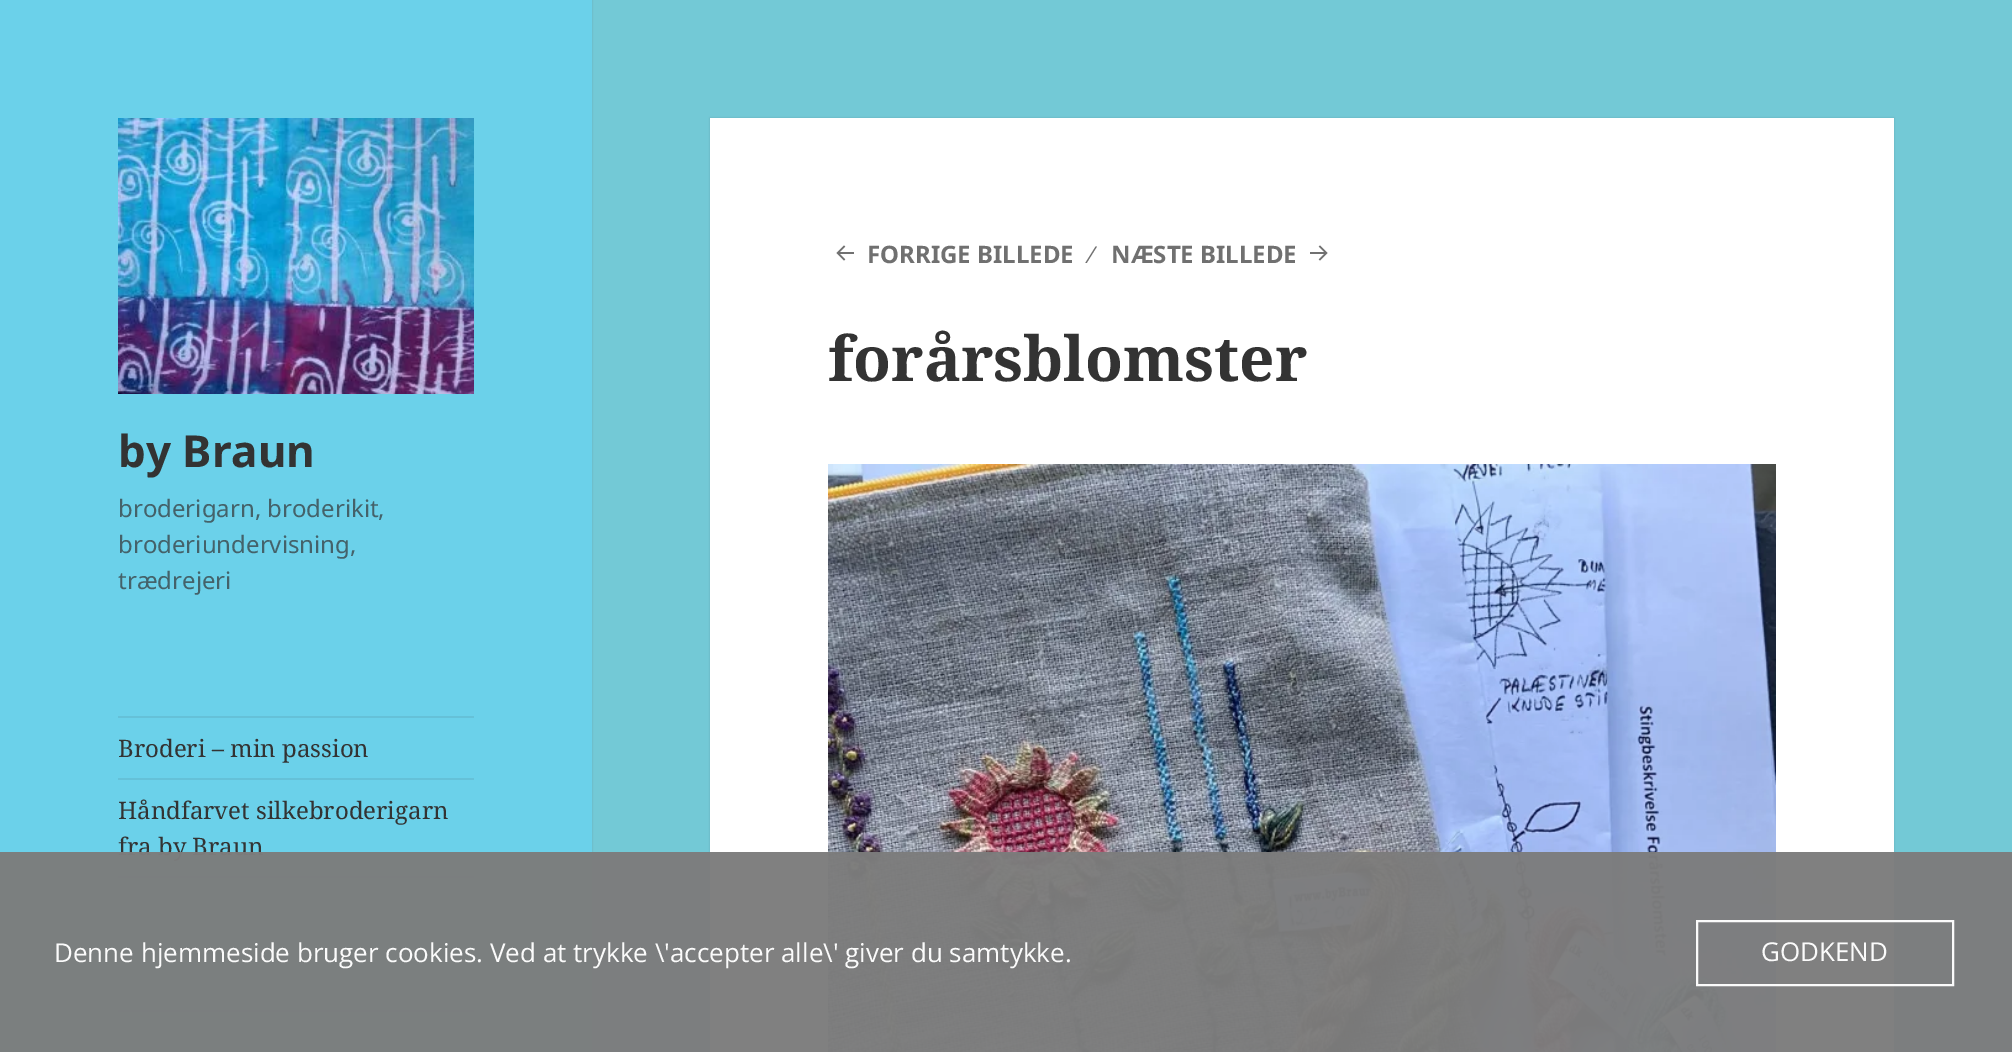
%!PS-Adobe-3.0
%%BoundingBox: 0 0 2012 1052
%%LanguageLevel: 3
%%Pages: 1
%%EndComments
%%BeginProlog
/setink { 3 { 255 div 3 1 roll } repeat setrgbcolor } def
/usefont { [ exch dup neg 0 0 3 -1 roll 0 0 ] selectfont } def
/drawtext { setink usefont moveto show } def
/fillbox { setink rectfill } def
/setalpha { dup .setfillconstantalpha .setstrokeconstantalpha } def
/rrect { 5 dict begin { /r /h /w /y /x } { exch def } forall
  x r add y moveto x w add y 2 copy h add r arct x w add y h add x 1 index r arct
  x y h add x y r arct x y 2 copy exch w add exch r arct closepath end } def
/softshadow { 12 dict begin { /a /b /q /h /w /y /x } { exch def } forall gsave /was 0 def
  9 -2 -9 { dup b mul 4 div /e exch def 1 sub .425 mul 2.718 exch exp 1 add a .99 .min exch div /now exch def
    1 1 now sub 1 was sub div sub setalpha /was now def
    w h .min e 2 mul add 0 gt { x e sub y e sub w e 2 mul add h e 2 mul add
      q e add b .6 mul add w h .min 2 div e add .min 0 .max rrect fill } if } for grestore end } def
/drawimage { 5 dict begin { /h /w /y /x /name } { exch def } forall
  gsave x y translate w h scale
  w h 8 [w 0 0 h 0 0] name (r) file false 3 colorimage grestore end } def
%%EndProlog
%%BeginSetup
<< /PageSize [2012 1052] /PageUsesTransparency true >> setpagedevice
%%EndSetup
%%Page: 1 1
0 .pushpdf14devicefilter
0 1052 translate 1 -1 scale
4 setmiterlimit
0 0 2012 1052 115 201 214 fillbox
0 0 0 setink
0 0 592 1052 0 1 0.15 softshadow
0 0 592 1052 107 209 234 fillbox
0 0 0 setink
710 118 1184 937 0 1 0.15 softshadow
710 118 1184 934 255 255 255 fillbox
(assets/img1.rgb) 836 245 18 16 drawimage
(FORRIGE BILLEDE) 867 263 /NotoSans-Bold 24 112 112 112 drawtext
(∕) 1090 263 /LiberationSans-Regular 24 112 112 112 drawtext
(NÆSTE BILLEDE) 1111 263 /NotoSans-Bold 24 112 112 112 drawtext
(assets/img2.rgb) 1310 245 18 16 drawimage
(forårsblomster) 828 381 /NotoSerif-Bold 62 51 51 51 drawtext
(assets/img3.rgb) 828 464 948 588 drawimage
(assets/img4.rgb) 118 118 356 276 drawimage
(by Braun) 118 467 /NotoSans-Bold 44 51 51 51 drawtext
(broderigarn, broderikit,) 118 517 /NotoSans-Regular 24 68 98 106 drawtext
(broderiundervisning,) 118 553 /NotoSans-Regular 24 68 98 106 drawtext
(trædrejeri) 118 589 /NotoSans-Regular 24 68 98 106 drawtext
118 716 356 2 101 193 216 fillbox
(Broderi – min passion) 118 757 /NotoSerif-Regular 24 51 51 51 drawtext
118 778 356 2 101 193 216 fillbox
(Håndfarvet silkebroderigarn) 118 819 /NotoSerif-Regular 24 51 51 51 drawtext
(fra by Braun) 118 855 /NotoSerif-Regular 24 51 51 51 drawtext
118 876 356 2 101 193 216 fillbox
118 1010 356 2 101 193 216 fillbox
0.97 setalpha
0 852 2012 200 124 124 124 fillbox
1 setalpha
(Denne hjemmeside bruger cookies. Ved at trykke \\'accepter alle\\' giver du samtykke.) 54 962 /OpenSans-Regular 26 251 251 251 drawtext
0.97 setalpha
255 255 255 setink
2 setlinewidth
1697 921 256 64 rectstroke
1 setalpha
(GODKEND) 1761 961 /OpenSans-Regular 26 251 251 251 drawtext
.poppdf14devicefilter showpage
%%EOF
